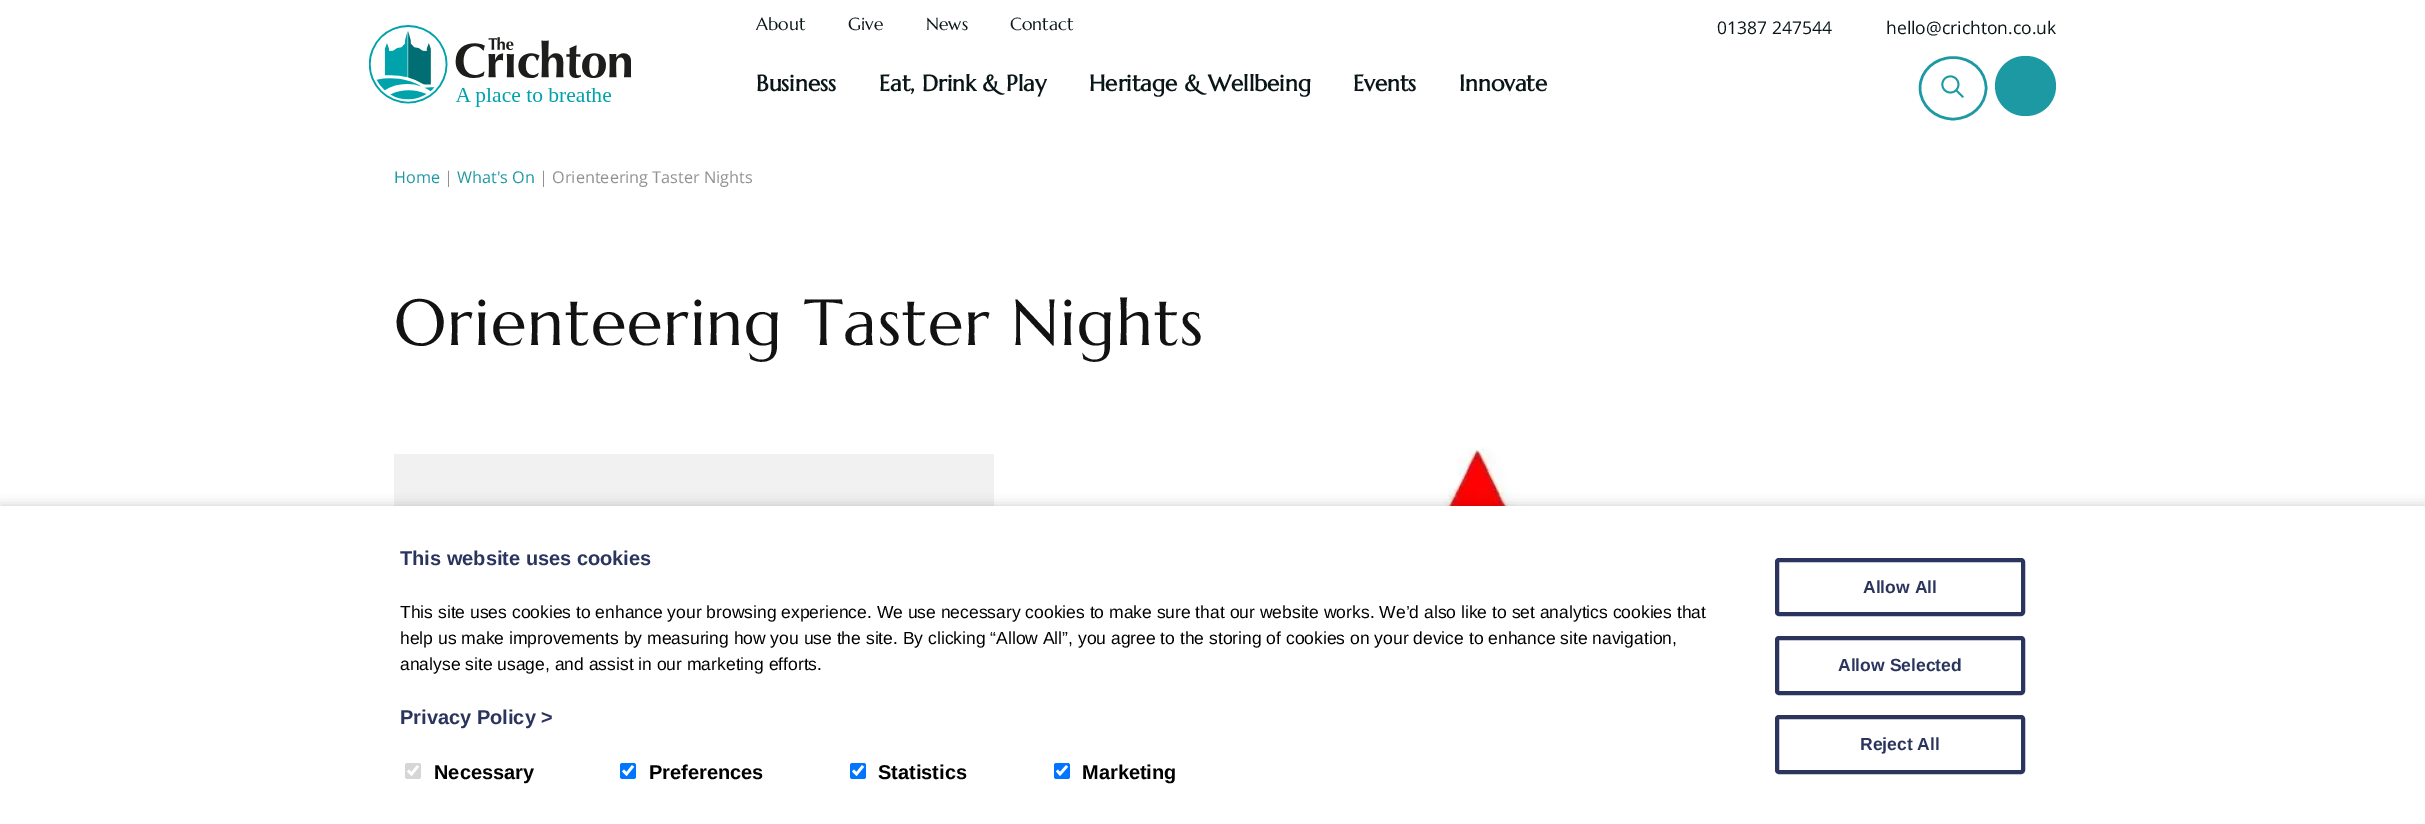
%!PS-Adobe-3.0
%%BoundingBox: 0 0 2425 824
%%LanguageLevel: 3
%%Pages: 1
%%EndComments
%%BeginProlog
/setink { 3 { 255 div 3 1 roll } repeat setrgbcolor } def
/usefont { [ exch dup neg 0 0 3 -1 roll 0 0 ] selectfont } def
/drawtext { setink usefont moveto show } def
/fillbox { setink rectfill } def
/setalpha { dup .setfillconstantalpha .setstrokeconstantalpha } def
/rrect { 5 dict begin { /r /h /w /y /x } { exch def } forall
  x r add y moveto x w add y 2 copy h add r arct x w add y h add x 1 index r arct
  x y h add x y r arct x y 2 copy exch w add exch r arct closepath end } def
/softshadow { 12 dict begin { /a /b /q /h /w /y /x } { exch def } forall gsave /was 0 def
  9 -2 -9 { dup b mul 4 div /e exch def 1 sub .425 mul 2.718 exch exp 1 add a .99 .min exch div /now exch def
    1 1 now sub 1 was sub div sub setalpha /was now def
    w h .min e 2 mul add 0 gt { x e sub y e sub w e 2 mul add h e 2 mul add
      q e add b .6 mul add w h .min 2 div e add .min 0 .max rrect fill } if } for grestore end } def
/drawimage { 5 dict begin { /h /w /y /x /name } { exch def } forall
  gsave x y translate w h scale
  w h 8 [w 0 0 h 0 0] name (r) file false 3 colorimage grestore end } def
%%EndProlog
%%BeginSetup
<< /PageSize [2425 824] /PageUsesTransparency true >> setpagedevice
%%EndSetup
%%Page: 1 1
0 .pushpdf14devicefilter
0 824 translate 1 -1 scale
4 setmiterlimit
0 0 2425 824 255 255 255 fillbox
(assets/img1.rgb) 369 25 262 82 drawimage
(About) 756 30 /Marcellus-Regular 17.5 10 22 24 drawtext
(Give) 848 30 /Marcellus-Regular 17.5 10 22 24 drawtext
(News) 926 30 /Marcellus-Regular 17.5 10 22 24 drawtext
(Contact) 1010 30 /Marcellus-Regular 17.5 10 22 24 drawtext
(01387 247544) 1717 34 /OpenSans-Regular 17.5 10 22 24 drawtext
(hello@crichton.co.uk) 1886 34 /OpenSans-Regular 17.5 10 22 24 drawtext
(Business) 756 91 /Marcellus-Bold 22.5 10 22 24 drawtext
(Eat, Drink & Play) 879 91 /Marcellus-Bold 22.5 10 22 24 drawtext
(Heritage & Wellbeing) 1089 91 /Marcellus-Bold 22.5 10 22 24 drawtext
(Events) 1353 91 /Marcellus-Bold 22.5 10 22 24 drawtext
(Innovate) 1459 91 /Marcellus-Bold 22.5 10 22 24 drawtext
28 153 163 setink
2.5 setlinewidth
1953 57.5 moveto 1971.5 57.5 1986 71 1986 88 curveto 1986 105 1971.5 119 1953 119 curveto 1935 119 1920 105 1920 88 curveto 1920 71 1935 57.5 1953 57.5 curveto closepath stroke
(assets/img2.rgb) 1941 75 23 23 drawimage
1995 56 61 60 30 rrect fill
(Home) 394 183 /OpenSans-Regular 16.25 28 153 163 drawtext
(|) 444 183 /OpenSans-Regular 16.25 145 145 145 drawtext
(What's On) 457 183 /OpenSans-Regular 16.25 28 153 163 drawtext
(| Orienteering Taster Nights) 539 183 /OpenSans-Regular 16.25 145 145 145 drawtext
/Marcellus-Regular 65 usefont
18 18 18 setink
394 345 moveto 1 0 (Orienteering Taster Nights) ashow
394 454 600 52 241 241 241 fillbox
(assets/img3.rgb) 1253 447 461 59 drawimage
0 0 0 setink
0 506 2425 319 0 6 0.2 softshadow
0 506 2425 318 255 255 255 fillbox
(This website uses cookies) 400 565 /LiberationSans-Bold 20 42 52 93 drawtext
(This site uses cookies to enhance your browsing experience. We use necessary cookies to make sure that our website works. We’d also like to set analytics cookies that) 400 618 /LiberationSans-Regular 17.5 0 0 0 drawtext
(help us make improvements by measuring how you use the site. By clicking “Allow All”, you agree to the storing of cookies on your device to enhance site navigation,) 400 644 /LiberationSans-Regular 17.5 0 0 0 drawtext
(analyse site usage, and assist in our marketing efforts.) 400 670 /LiberationSans-Regular 17.5 0 0 0 drawtext
(Privacy Policy >) 400 724 /LiberationSans-Bold 20 42 52 93 drawtext
214 214 214 setink
405 763 16 16 2.5 rrect fill
255 255 255 setink
2.6 setlinewidth
408 770.5 moveto 411.5 774 lineto 418 766 lineto stroke
(Necessary) 434 779 /LiberationSans-Bold 20 0 0 0 drawtext
0 117 255 setink
620 763 16 16 2.5 rrect fill
255 255 255 setink
623 770.5 moveto 626.5 774 lineto 633 766 lineto stroke
(Preferences) 649 779 /LiberationSans-Bold 20 0 0 0 drawtext
0 117 255 setink
850 763 16 16 2.5 rrect fill
255 255 255 setink
853 770.5 moveto 856.5 774 lineto 863 766 lineto stroke
(Statistics) 878 779 /LiberationSans-Bold 20 0 0 0 drawtext
0 117 255 setink
1054 763 16 16 2.5 rrect fill
255 255 255 setink
1057 770.5 moveto 1060 774 lineto 1067 766 lineto stroke
(Marketing) 1082 779 /LiberationSans-Bold 20 0 0 0 drawtext
42 52 93 setink
4 setlinewidth
1777 560 246 54 2 rrect stroke
(Allow All) 1863 593 /LiberationSans-Bold 17.5 42 52 93 drawtext
1777 638 246 55 2 rrect stroke
(Allow Selected) 1838 671 /LiberationSans-Bold 17.5 42 52 93 drawtext
1777 717 246 55 2 rrect stroke
(Reject All) 1860 750 /LiberationSans-Bold 17.5 42 52 93 drawtext
.poppdf14devicefilter showpage
%%EOF
